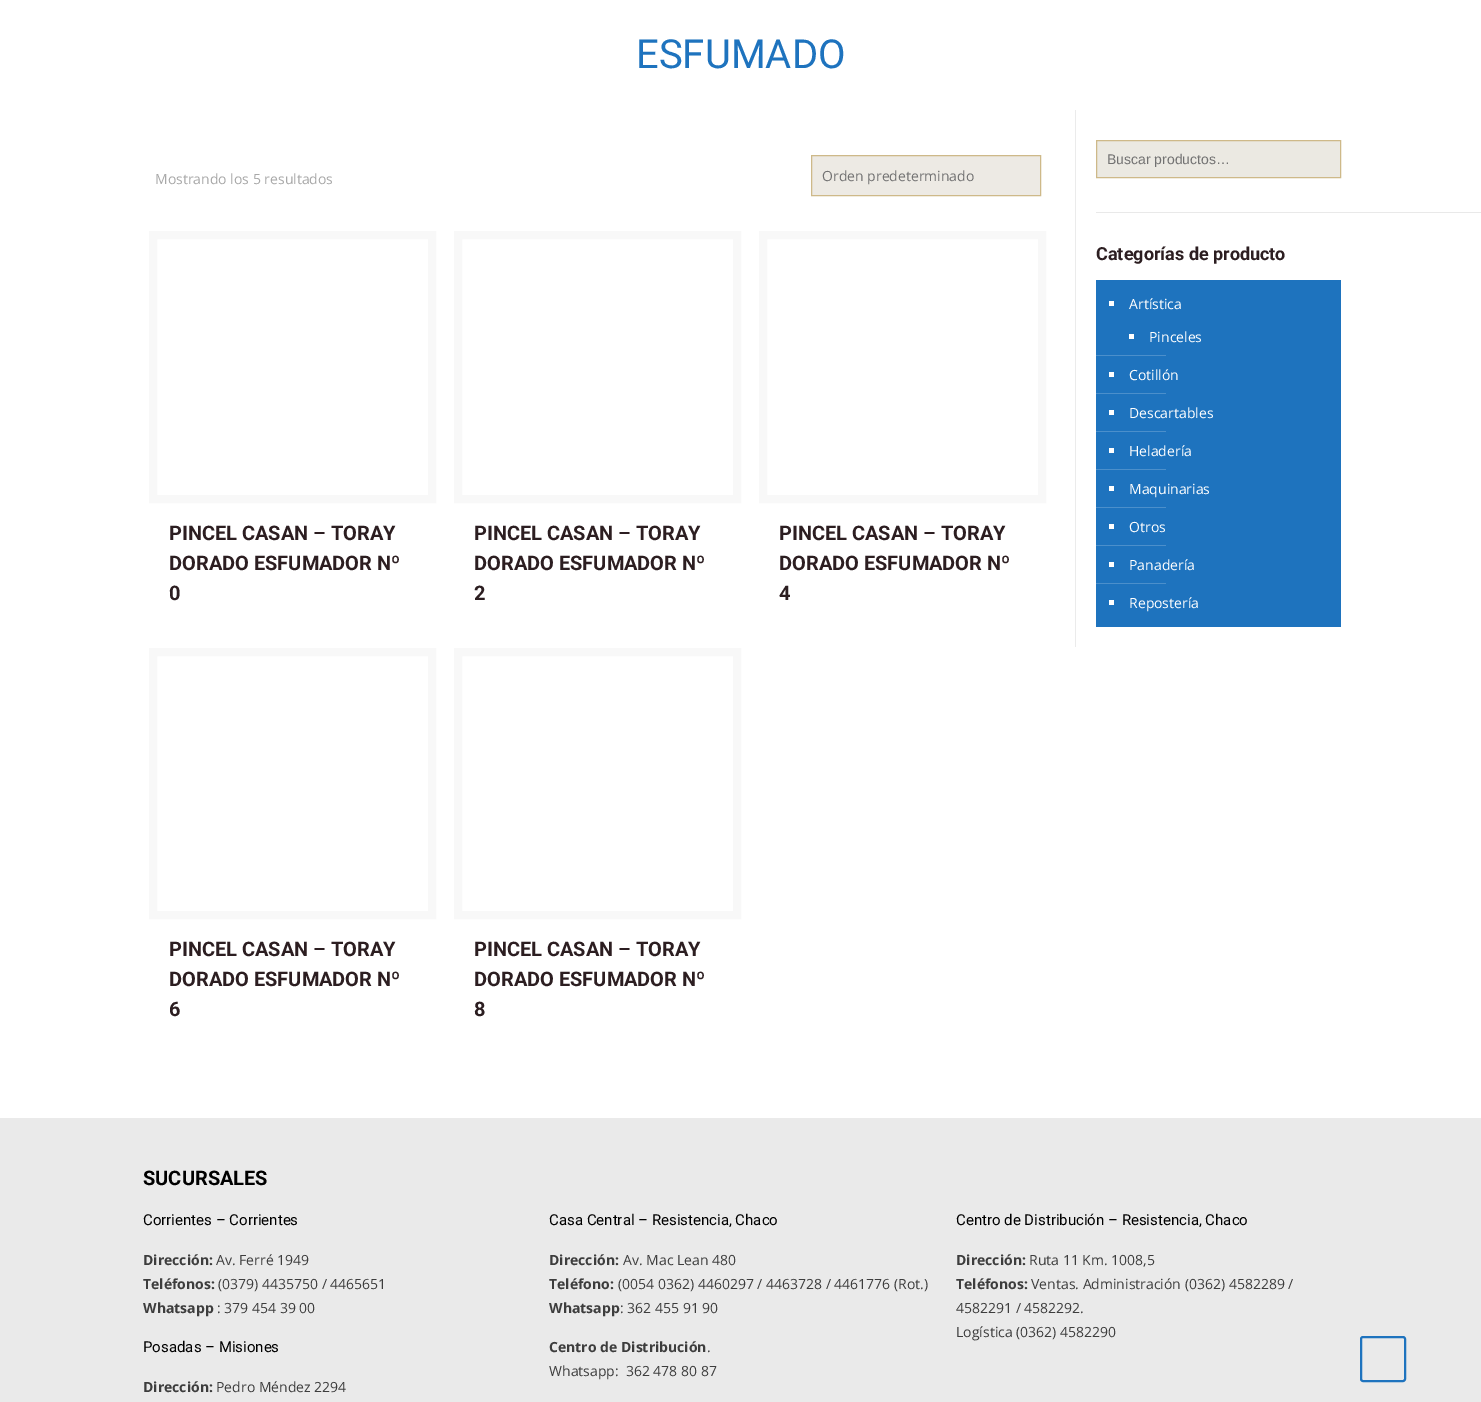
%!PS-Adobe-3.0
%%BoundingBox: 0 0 1481 1402
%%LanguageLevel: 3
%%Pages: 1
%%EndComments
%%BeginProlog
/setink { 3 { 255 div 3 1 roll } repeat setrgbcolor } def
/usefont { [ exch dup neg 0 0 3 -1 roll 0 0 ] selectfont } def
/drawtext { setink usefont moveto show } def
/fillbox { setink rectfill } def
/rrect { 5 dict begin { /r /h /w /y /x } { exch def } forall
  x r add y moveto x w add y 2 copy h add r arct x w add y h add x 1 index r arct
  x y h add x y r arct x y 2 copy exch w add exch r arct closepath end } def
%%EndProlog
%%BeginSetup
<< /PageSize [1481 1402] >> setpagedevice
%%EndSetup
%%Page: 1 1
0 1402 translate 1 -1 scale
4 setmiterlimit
0 0 1481 1402 255 255 255 fillbox
(ESFUMADO) 636 68 /Roboto-Regular 40 30 115 190 drawtext
(Mostrando los 5 resultados) 155 184 /OpenSans-Regular 14 168 168 168 drawtext
237 234 228 setink
811.5 155.5 moveto 1040.5 155.5 lineto 1040.5 195.5 lineto 811.5 195.5 lineto closepath gsave fill grestore
206 185 137 setink
stroke
(Orden predeterminado) 822 181 /OpenSans-Regular 14 114 114 114 drawtext
248 248 248 setink
8 setlinewidth
153 235 279 264 rectstroke
(PINCEL CASAN – TORAY) 169 540 /Roboto-Bold 20 44 30 33 drawtext
(DORADO ESFUMADOR Nº) 169 570 /Roboto-Bold 20 44 30 33 drawtext
(0) 169 600 /Roboto-Bold 20 44 30 33 drawtext
248 248 248 setink
458 235 279 264 rectstroke
(PINCEL CASAN – TORAY) 474 540 /Roboto-Bold 20 44 30 33 drawtext
(DORADO ESFUMADOR Nº) 474 570 /Roboto-Bold 20 44 30 33 drawtext
(2) 474 600 /Roboto-Bold 20 44 30 33 drawtext
248 248 248 setink
763 235 279 264 rectstroke
(PINCEL CASAN – TORAY) 779 540 /Roboto-Bold 20 44 30 33 drawtext
(DORADO ESFUMADOR Nº) 779 570 /Roboto-Bold 20 44 30 33 drawtext
(4) 779 600 /Roboto-Bold 20 44 30 33 drawtext
248 248 248 setink
153 652 279 263 rectstroke
(PINCEL CASAN – TORAY) 169 956 /Roboto-Bold 20 44 30 33 drawtext
(DORADO ESFUMADOR Nº) 169 986 /Roboto-Bold 20 44 30 33 drawtext
(6) 169 1016 /Roboto-Bold 20 44 30 33 drawtext
248 248 248 setink
458 652 279 263 rectstroke
(PINCEL CASAN – TORAY) 474 956 /Roboto-Bold 20 44 30 33 drawtext
(DORADO ESFUMADOR Nº) 474 986 /Roboto-Bold 20 44 30 33 drawtext
(8) 474 1016 /Roboto-Bold 20 44 30 33 drawtext
1075 110 1 537 235 235 235 fillbox
235 233 226 setink
1096.5 140.5 moveto 1340.5 140.5 lineto 1340.5 177.5 lineto 1096.5 177.5 lineto closepath gsave fill grestore
206 185 137 setink
1 setlinewidth
stroke
(Buscar productos…) 1107 164 /LiberationSans-Regular 14 114 114 114 drawtext
1096 212 385 1 233 233 233 fillbox
(Categorías de producto) 1096 260 /Roboto-Bold 18 44 30 33 drawtext
1096 280 245 347 30 115 190 fillbox
1109 301 5 5 255 255 255 fillbox
(Artística) 1129 309 /OpenSans-Regular 14 255 255 255 drawtext
1129 334 5 5 255 255 255 fillbox
(Pinceles) 1149 342 /OpenSans-Regular 14 255 255 255 drawtext
1096 355 70 1 75 143 203 fillbox
1109 372 5 5 255 255 255 fillbox
(Cotillón) 1129 380 /OpenSans-Regular 14 255 255 255 drawtext
1096 393 70 1 75 143 203 fillbox
1109 410 5 5 255 255 255 fillbox
(Descartables) 1129 418 /OpenSans-Regular 14 255 255 255 drawtext
1096 431 70 1 75 143 203 fillbox
1109 448 5 5 255 255 255 fillbox
(Heladería) 1129 456 /OpenSans-Regular 14 255 255 255 drawtext
1096 469 70 1 75 143 203 fillbox
1109 486 5 5 255 255 255 fillbox
(Maquinarias) 1129 494 /OpenSans-Regular 14 255 255 255 drawtext
1096 507 70 1 75 143 203 fillbox
1109 524 5 5 255 255 255 fillbox
(Otros) 1129 532 /OpenSans-Regular 14 255 255 255 drawtext
1096 545 70 1 75 143 203 fillbox
1109 562 5 5 255 255 255 fillbox
(Panadería) 1129 570 /OpenSans-Regular 14 255 255 255 drawtext
1096 583 70 1 75 143 203 fillbox
1109 600 5 5 255 255 255 fillbox
(Repostería) 1129 608 /OpenSans-Regular 14 255 255 255 drawtext
0 1118 1481 284 234 234 234 fillbox
(SUCURSALES) 143 1185 /Roboto-Bold 20 0 0 0 drawtext
(Corrientes – Corrientes) 143 1225 /Roboto-Regular 15 0 0 0 drawtext
(Dirección:) 143 1265 /OpenSans-Bold 14 61 61 61 drawtext
(Av. Ferré 1949) 216 1265 /OpenSans-Regular 14 61 61 61 drawtext
(Teléfonos:) 143 1289 /OpenSans-Bold 14 61 61 61 drawtext
(\(0379\) 4435750 / 4465651) 218 1289 /OpenSans-Regular 14 61 61 61 drawtext
(Whatsapp) 143 1313 /OpenSans-Bold 14 61 61 61 drawtext
(: 379 454 39 00) 217 1313 /OpenSans-Regular 14 61 61 61 drawtext
(Posadas – Misiones) 143 1352 /Roboto-Regular 15 0 0 0 drawtext
(Dirección:) 143 1392 /OpenSans-Bold 14 61 61 61 drawtext
(Pedro Méndez 2294) 216 1392 /OpenSans-Regular 14 61 61 61 drawtext
(Casa Central – Resistencia, Chaco) 549 1225 /Roboto-Regular 15 0 0 0 drawtext
(Dirección:) 549 1265 /OpenSans-Bold 14 61 61 61 drawtext
(Av. Mac Lean 480) 623 1265 /OpenSans-Regular 14 61 61 61 drawtext
(Teléfono:) 549 1289 /OpenSans-Bold 14 61 61 61 drawtext
(\(0054 0362\) 4460297 / 4463728 / 4461776 \(Rot.\)) 618 1289 /OpenSans-Regular 14 61 61 61 drawtext
(Whatsapp) 549 1313 /OpenSans-Bold 14 61 61 61 drawtext
(: 362 455 91 90) 620 1313 /OpenSans-Regular 14 61 61 61 drawtext
(Centro de Distribución) 549 1352 /OpenSans-Bold 14 61 61 61 drawtext
(.) 707 1352 /OpenSans-Regular 14 61 61 61 drawtext
(Whatsapp:  362 478 80 87) 549 1376 /OpenSans-Regular 14 61 61 61 drawtext
(Centro de Distribución – Resistencia, Chaco) 956 1225 /Roboto-Regular 15 0 0 0 drawtext
(Dirección:) 956 1265 /OpenSans-Bold 14 61 61 61 drawtext
(Ruta 11 Km. 1008,5) 1029 1265 /OpenSans-Regular 14 61 61 61 drawtext
(Teléfonos:) 956 1289 /OpenSans-Bold 14 61 61 61 drawtext
(Ventas. Administración \(0362\) 4582289 /) 1031 1289 /OpenSans-Regular 14 61 61 61 drawtext
(4582291 / 4582292.) 956 1313 /OpenSans-Regular 14 61 61 61 drawtext
(Logística \(0362\) 4582290) 956 1337 /OpenSans-Regular 14 61 61 61 drawtext
30 115 190 setink
2 setlinewidth
1361 1337 44 44 2 rrect stroke
showpage
%%EOF
